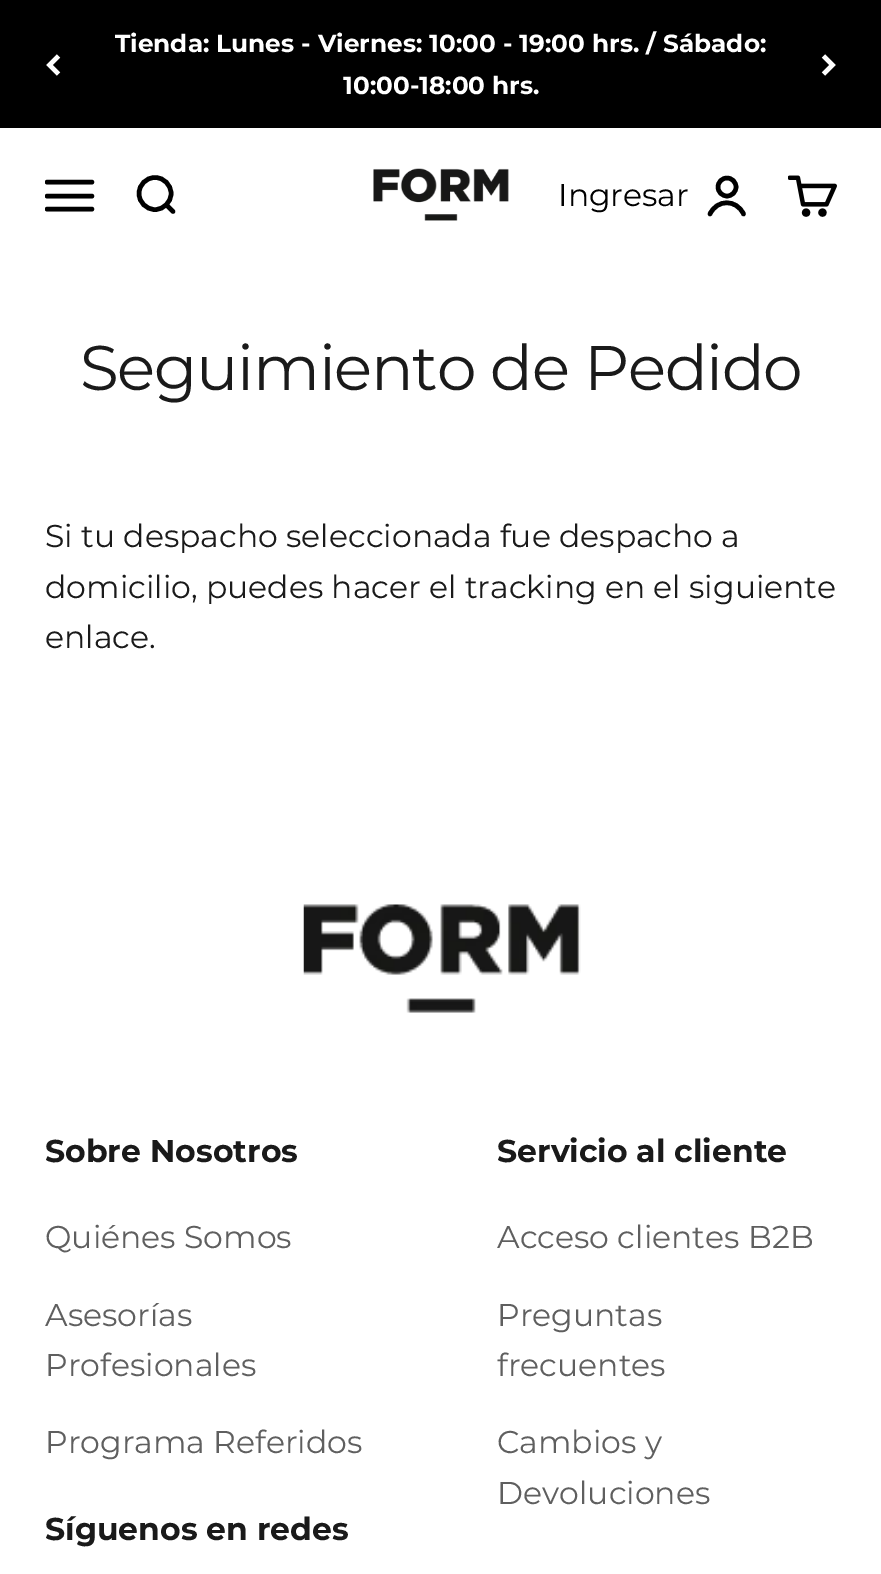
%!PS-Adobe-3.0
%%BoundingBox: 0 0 881 1574
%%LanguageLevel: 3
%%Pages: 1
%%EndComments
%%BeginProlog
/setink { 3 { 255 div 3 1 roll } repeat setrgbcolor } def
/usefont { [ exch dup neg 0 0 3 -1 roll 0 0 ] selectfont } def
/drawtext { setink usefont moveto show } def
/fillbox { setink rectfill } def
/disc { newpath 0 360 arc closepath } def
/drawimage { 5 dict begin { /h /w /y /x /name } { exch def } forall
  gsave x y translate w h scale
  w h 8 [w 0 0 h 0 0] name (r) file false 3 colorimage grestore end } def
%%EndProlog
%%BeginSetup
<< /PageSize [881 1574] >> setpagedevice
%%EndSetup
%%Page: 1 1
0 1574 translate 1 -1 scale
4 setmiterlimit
0 0 881 1574 255 255 255 fillbox
0 0 881 128 0 0 0 fillbox
255 255 255 setink
4.5 setlinewidth
58.5 56 moveto 49.5 65 lineto 58.5 74 lineto stroke
(Tienda: Lunes - Viernes: 10:00 - 19:00 hrs. / Sábado:) 115 52 /Montserrat-Bold 24.75 255 255 255 drawtext
(10:00-18:00 hrs.) 343 94 /Montserrat-Bold 24.75 255 255 255 drawtext
823.5 74 moveto 832.5 65 lineto 823.5 56 lineto stroke
gsave
45 171 50 50 rectclip
0 0 0 setink
1 setlinecap
47 182 moveto 92 182 lineto 47 196 moveto 92 196 lineto 47 209 moveto 92 209 lineto stroke
grestore
0 0 0 setink
155 193.5 16 disc stroke
1 setlinecap
1 setlinejoin
166.5 205 moveto 173 211.5 lineto stroke
(assets/img1.rgb) 373 168 136 53 drawimage
(Ingresar) 558 206 /Montserrat-Regular 31.5 0 0 0 drawtext
0 setlinecap
0 setlinejoin
727 187 9 disc stroke
1 setlinecap
710 214 moveto 717 199 736.5 199 743.5 214 curveto stroke
(assets/img2.rgb) 788 175 49 42 drawimage
/Montserrat-Regular 63 usefont
26 26 26 setink
80 390 moveto -1.25 0 (Seguimiento de Pedido) ashow
(Si tu despacho seleccionada fue despacho a) 45 547 /Montserrat-Regular 31.5 26 26 26 drawtext
(domicilio, puedes hacer el tracking en el siguiente) 45 598 /Montserrat-Regular 31.5 26 26 26 drawtext
(enlace.) 45 648 /Montserrat-Regular 31.5 26 26 26 drawtext
(assets/img3.rgb) 303 904 278 109 drawimage
(Sobre Nosotros) 45 1162 /Montserrat-Bold 31.5 26 26 26 drawtext
(Quiénes Somos) 45 1248 /Montserrat-Regular 31.5 95 95 95 drawtext
(Asesorías) 45 1326 /Montserrat-Regular 31.5 95 95 95 drawtext
(Profesionales) 45 1376 /Montserrat-Regular 31.5 95 95 95 drawtext
(Programa Referidos) 45 1453 /Montserrat-Regular 31.5 95 95 95 drawtext
(Síguenos en redes) 45 1540 /Montserrat-Bold 31.5 26 26 26 drawtext
(Servicio al cliente) 497 1162 /Montserrat-Bold 31.5 26 26 26 drawtext
(Acceso clientes B2B) 497 1248 /Montserrat-Regular 31.5 95 95 95 drawtext
(Preguntas) 497 1326 /Montserrat-Regular 31.5 95 95 95 drawtext
(frecuentes) 497 1376 /Montserrat-Regular 31.5 95 95 95 drawtext
(Cambios y) 497 1453 /Montserrat-Regular 31.5 95 95 95 drawtext
(Devoluciones) 497 1504 /Montserrat-Regular 31.5 95 95 95 drawtext
showpage
%%EOF
